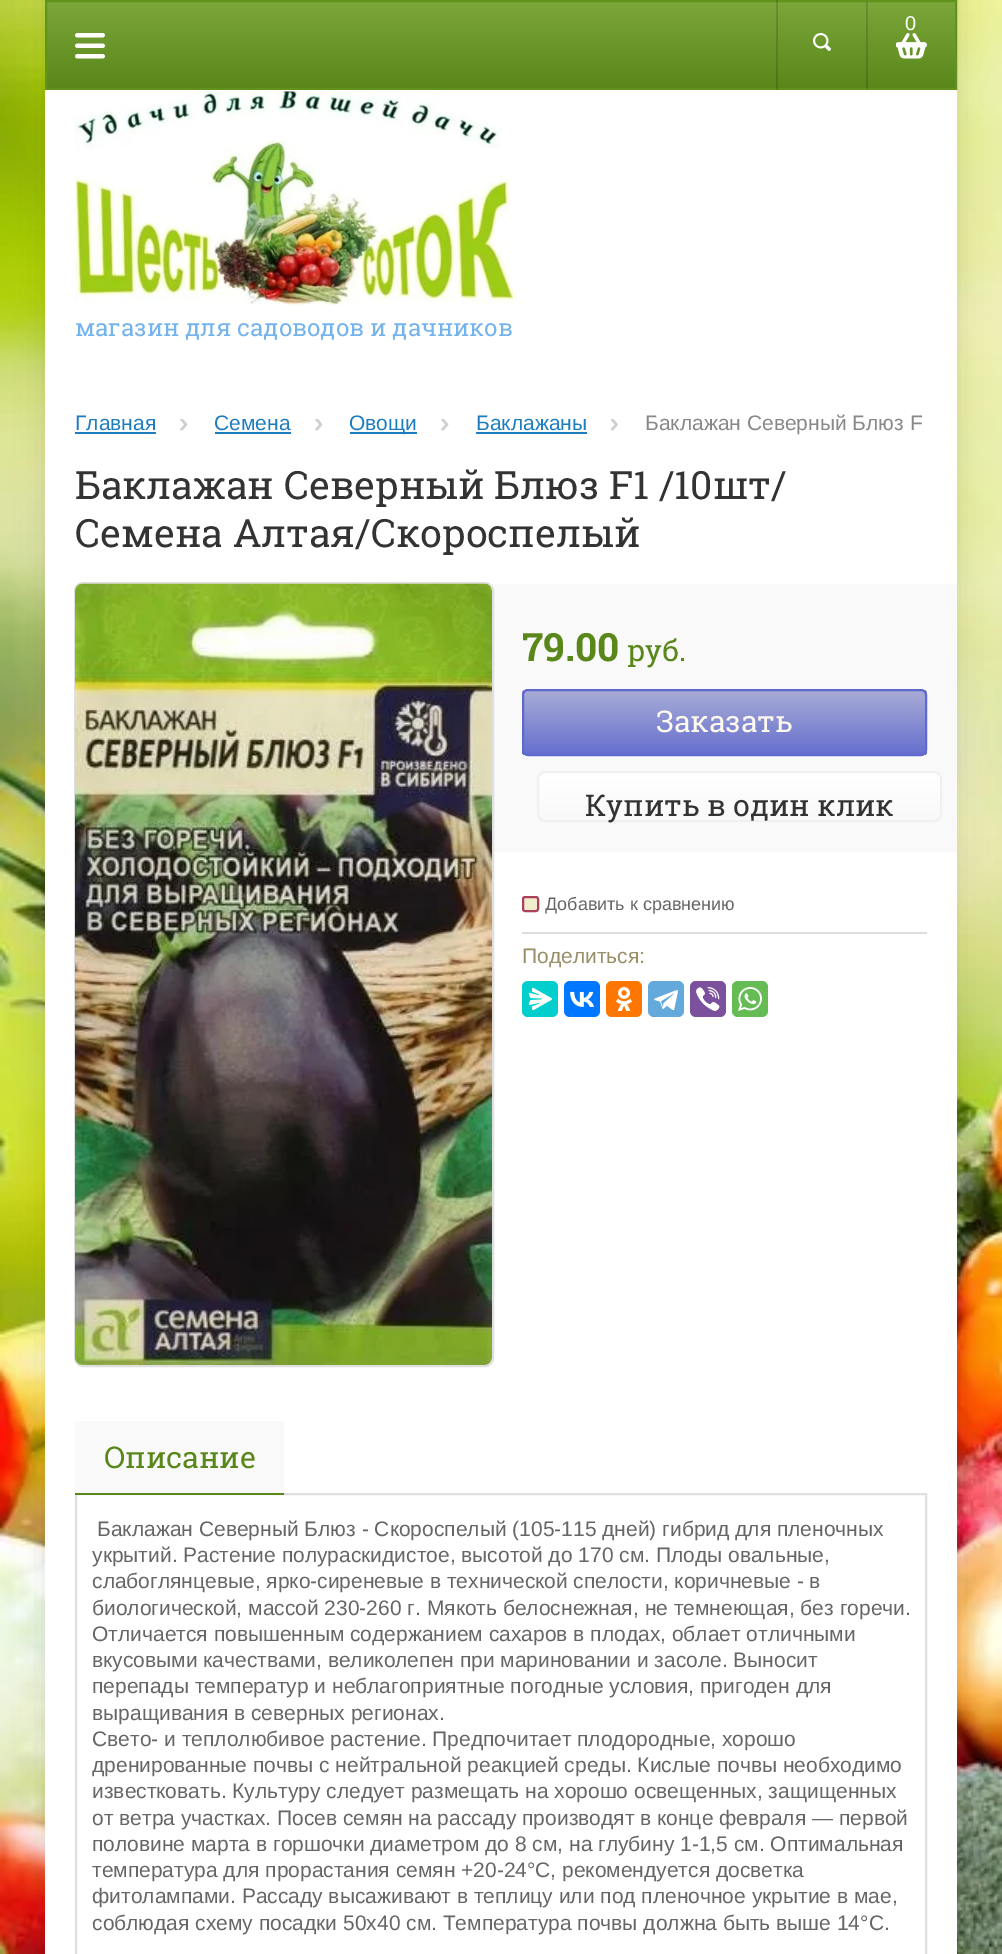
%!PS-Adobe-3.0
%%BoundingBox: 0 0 1002 1954
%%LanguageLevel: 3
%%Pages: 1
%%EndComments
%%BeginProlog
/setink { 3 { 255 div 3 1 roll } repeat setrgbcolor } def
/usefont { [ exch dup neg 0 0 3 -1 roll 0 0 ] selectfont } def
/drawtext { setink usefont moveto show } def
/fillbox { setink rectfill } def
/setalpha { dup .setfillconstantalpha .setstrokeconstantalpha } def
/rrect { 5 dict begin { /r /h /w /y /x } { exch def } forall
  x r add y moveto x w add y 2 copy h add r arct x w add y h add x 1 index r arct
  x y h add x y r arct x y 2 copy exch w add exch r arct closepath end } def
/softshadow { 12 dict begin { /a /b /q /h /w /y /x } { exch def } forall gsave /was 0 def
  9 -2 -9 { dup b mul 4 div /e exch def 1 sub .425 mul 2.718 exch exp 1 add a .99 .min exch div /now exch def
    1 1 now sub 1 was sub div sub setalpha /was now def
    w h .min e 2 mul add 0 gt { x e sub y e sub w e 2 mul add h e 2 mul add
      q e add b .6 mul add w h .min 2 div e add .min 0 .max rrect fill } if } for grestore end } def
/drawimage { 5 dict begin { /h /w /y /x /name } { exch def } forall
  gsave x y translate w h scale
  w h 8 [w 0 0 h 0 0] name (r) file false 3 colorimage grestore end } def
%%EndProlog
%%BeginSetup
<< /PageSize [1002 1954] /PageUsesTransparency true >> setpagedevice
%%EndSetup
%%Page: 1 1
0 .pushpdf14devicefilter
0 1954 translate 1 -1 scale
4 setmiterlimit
0 0 1002 1954 255 255 255 fillbox
(assets/img1.rgb) 0 0 1002 1954 drawimage
0 0 0 setink
45 -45 912 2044 0 15 0.1 softshadow
gsave 47 2 moveto 955 2 lineto 955 88 lineto 47 88 lineto closepath clip newpath
<< /ShadingType 2 /ColorSpace /DeviceRGB /Coords [501 1.5 501 89] /Extend [true true] /Function << /FunctionType 2 /Domain [0 1] /C0 [0.486 0.651 0.227] /C1 [0.349 0.529 0.102] /N 1 >> >> shfill grestore
96 146 28 setink
2 setlinewidth
46 1 910 88 rectstroke
(assets/img2.rgb) 813 33 18 18 drawimage
0.14 setalpha
776 0 2 90 0 0 0 fillbox
866 2 2 87 0 0 0 fillbox
1 setalpha
(assets/img3.rgb) 896 33 31 26 drawimage
(0) 905 30 /LiberationSans-Regular 20 255 255 255 drawtext
(assets/img4.rgb) 75 33 30 26 drawimage
45 90 912 1864 255 255 255 fillbox
(assets/img5.rgb) 75 91 438 214 drawimage
(магазин для садоводов и дачников) 75 336 /RobotoSlab-Regular 24 117 179 237 drawtext
(Главная) 75 430 /LiberationSans-Regular 21 30 125 191 drawtext
75 432 81 2 30 125 191 fillbox
(assets/img6.rgb) 180 419 8 12 drawimage
(Семена) 214 430 /LiberationSans-Regular 21 30 125 191 drawtext
215 432 76 2 30 125 191 fillbox
(assets/img6.rgb) 315 419 8 12 drawimage
350 432 67 2 30 125 191 fillbox
(Овощи) 349 430 /LiberationSans-Regular 21 30 125 191 drawtext
(assets/img6.rgb) 441 419 8 12 drawimage
(Баклажаны) 476 430 /LiberationSans-Regular 21 30 125 191 drawtext
476 432 111 2 30 125 191 fillbox
(assets/img7.rgb) 611 419 7 12 drawimage
(Баклажан Северный Блюз F) 645 430 /LiberationSans-Regular 21 136 136 136 drawtext
(Баклажан Северный Блюз F1 /10шт/) 75 499 /RobotoSlab-Regular 39 51 51 51 drawtext
(Семена Алтая/Скороспелый) 75 547 /RobotoSlab-Regular 39 51 51 51 drawtext
492 584 465 268 249 249 249 fillbox
223 223 223 setink
75 583 418 783 8 rrect stroke
(assets/img8.rgb) 75 583 417 782 drawimage
(79.00) 522 661 /RobotoSlab-Bold 39 89 135 26 drawtext
(руб.) 627 661 /RobotoSlab-Regular 30 89 135 26 drawtext
gsave
522 689 405 67 6 rrect clip newpath
gsave 522 690 moveto 927 690 lineto 927 755 lineto 522 755 lineto closepath clip newpath
<< /ShadingType 2 /ColorSpace /DeviceRGB /Coords [725 690 725 755] /Extend [true true] /Function << /FunctionType 2 /Domain [0 1] /C0 [0.663 0.678 0.835] /C1 [0.396 0.431 0.812] /N 1 >> >> shfill grestore
grestore
95 105 205 setink
523 690 403 65 5 rrect stroke
(Заказать) 656 732 /RobotoSlab-Regular 30 253 249 238 drawtext
gsave
537 771 405 51 8 rrect clip newpath
gsave 537 773 moveto 942 773 lineto 942 821 lineto 537 821 lineto closepath clip newpath
<< /ShadingType 2 /ColorSpace /DeviceRGB /Coords [740 773 740 821] /Extend [true true] /Function << /FunctionType 2 /Domain [0 1] /C0 [1 1 1] /C1 [0.976 0.976 0.976] /N 1 >> >> shfill grestore
grestore
240 240 240 setink
538 772 403 49 7 rrect stroke
(Купить в один клик) 585 816 /RobotoSlab-Regular 30 51 51 51 drawtext
522 932 405 2 222 222 222 fillbox
241 237 207 setink
523 897 15 14 2 rrect gsave fill grestore
172 64 90 setink
stroke
(Добавить к сравнению) 545 910 /LiberationSans-Regular 18 102 102 102 drawtext
(Поделиться:) 522 963 /LiberationSans-Regular 21 152 142 104 drawtext
3 206 206 setink
522 981 36 36 6 rrect fill
(assets/img9.rgb) 528 987 24 24 drawimage
0 119 255 setink
564 981 36 36 6 rrect fill
(assets/img10.rgb) 570 991 24 16 drawimage
255 119 0 setink
606 981 36 36 6 rrect fill
(assets/img11.rgb) 616 987 17 24 drawimage
100 169 220 setink
648 981 36 36 6 rrect fill
(assets/img12.rgb) 654 990 24 21 drawimage
123 81 157 setink
690 981 36 36 6 rrect fill
(assets/img13.rgb) 696 987 24 24 drawimage
101 188 84 setink
732 981 36 36 6 rrect fill
(assets/img14.rgb) 738 987 24 24 drawimage
75 1421 209 72 249 249 249 fillbox
223 223 223 setink
76 1494 850 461 rectstroke
75 1493 209 2 89 135 26 fillbox
(Описание) 104 1468 /RobotoSlab-Regular 30 89 135 26 drawtext
(Баклажан Северный Блюз - Скороспелый \(105-115 дней\) гибрид для пленочных) 97 1536 /LiberationSans-Regular 21 102 102 102 drawtext
(укрытий. Растение полураскидистое, высотой до 170 см. Плоды овальные,) 92 1562 /LiberationSans-Regular 21 102 102 102 drawtext
(слабоглянцевые, ярко-сиреневые в технической спелости, коричневые - в) 92 1588 /LiberationSans-Regular 21 102 102 102 drawtext
(биологической, массой 230-260 г. Мякоть белоснежная, не темнеющая, без горечи.) 92 1615 /LiberationSans-Regular 21 102 102 102 drawtext
(Отличается повышенным содержанием сахаров в плодах, облает отличными) 92 1641 /LiberationSans-Regular 21 102 102 102 drawtext
(вкусовыми качествами, великолепен при мариновании и засоле. Выносит) 92 1667 /LiberationSans-Regular 21 102 102 102 drawtext
(перепады температур и неблагоприятные погодные условия, пригоден для) 92 1693 /LiberationSans-Regular 21 102 102 102 drawtext
(выращивания в северных регионах.) 92 1720 /LiberationSans-Regular 21 102 102 102 drawtext
(Свето- и теплолюбивое растение. Предпочитает плодородные, хорошо) 92 1746 /LiberationSans-Regular 21 102 102 102 drawtext
(дренированные почвы с нейтральной реакцией среды. Кислые почвы необходимо) 92 1772 /LiberationSans-Regular 21 102 102 102 drawtext
(известковать. Культуру следует размещать на хорошо освещенных, защищенных) 92 1798 /LiberationSans-Regular 21 102 102 102 drawtext
(от ветра участках. Посев семян на рассаду производят в конце февраля — первой) 92 1825 /LiberationSans-Regular 21 102 102 102 drawtext
(половине марта в горшочки диаметром до 8 см, на глубину 1-1,5 см. Оптимальная) 92 1851 /LiberationSans-Regular 21 102 102 102 drawtext
(температура для прорастания семян +20-24°С, рекомендуется досветка) 92 1877 /LiberationSans-Regular 21 102 102 102 drawtext
(фитолампами. Рассаду высаживают в теплицу или под пленочное укрытие в мае,) 92 1903 /LiberationSans-Regular 21 102 102 102 drawtext
(соблюдая схему посадки 50х40 см. Температура почвы должна быть выше 14°С.) 92 1930 /LiberationSans-Regular 21 102 102 102 drawtext
.poppdf14devicefilter showpage
%%EOF
